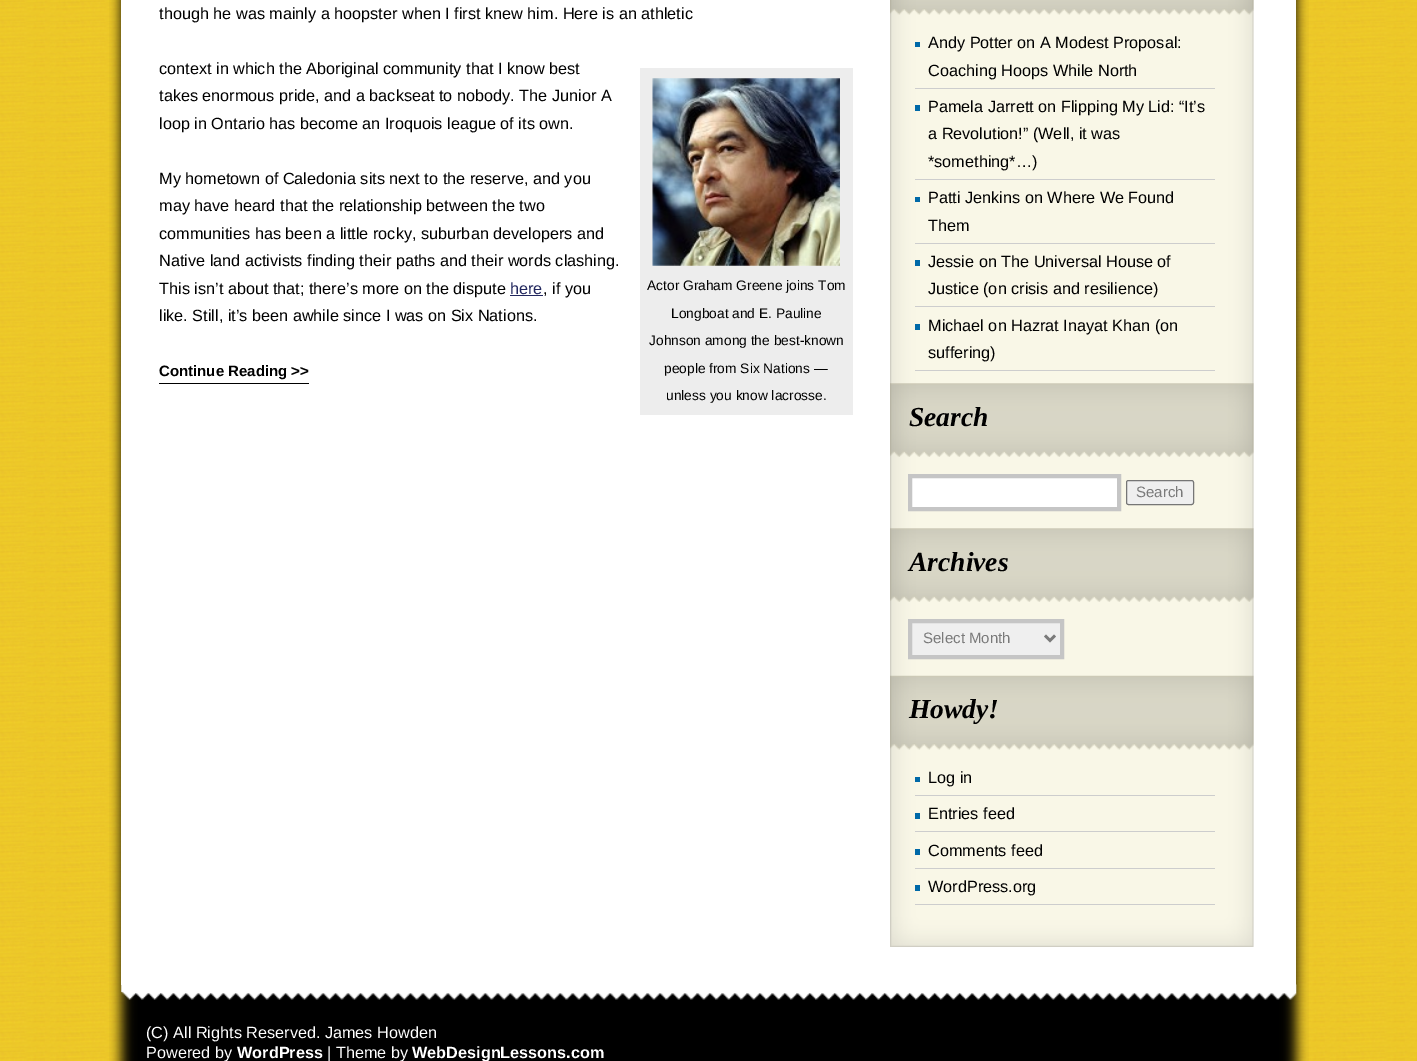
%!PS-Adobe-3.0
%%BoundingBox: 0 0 1417 1061
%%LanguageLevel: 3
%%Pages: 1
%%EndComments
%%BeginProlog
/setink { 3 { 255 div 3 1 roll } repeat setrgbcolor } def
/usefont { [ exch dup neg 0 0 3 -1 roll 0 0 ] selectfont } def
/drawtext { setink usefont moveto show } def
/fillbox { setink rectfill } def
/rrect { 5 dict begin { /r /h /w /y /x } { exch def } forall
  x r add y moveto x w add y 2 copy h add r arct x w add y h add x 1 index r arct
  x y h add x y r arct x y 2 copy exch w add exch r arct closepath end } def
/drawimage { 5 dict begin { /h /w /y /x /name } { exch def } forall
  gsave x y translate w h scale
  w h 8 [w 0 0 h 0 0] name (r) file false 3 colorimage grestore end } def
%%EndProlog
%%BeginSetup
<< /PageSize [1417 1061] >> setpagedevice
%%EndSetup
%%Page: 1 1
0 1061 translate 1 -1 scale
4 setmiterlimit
0 0 1417 1061 255 255 255 fillbox
(assets/img1.rgb) 0 0 1417 1061 drawimage
(assets/img2.rgb) 109 0 1200 1061 drawimage
121 0 1175 985 255 255 255 fillbox
(though he was mainly a hoopster when I first knew him. Here is an athletic) 159 19 /LiberationSans-Regular 16.25 0 0 0 drawtext
(context in which the Aboriginal community that I know best) 159 74 /LiberationSans-Regular 16.25 0 0 0 drawtext
(takes enormous pride, and a backseat to nobody. The Junior A) 159 101 /LiberationSans-Regular 16.25 0 0 0 drawtext
(loop in Ontario has become an Iroquois league of its own.) 159 129 /LiberationSans-Regular 16.25 0 0 0 drawtext
(My hometown of Caledonia sits next to the reserve, and you) 159 184 /LiberationSans-Regular 16.25 0 0 0 drawtext
(may have heard that the relationship between the two) 159 211 /LiberationSans-Regular 16.25 0 0 0 drawtext
(communities has been a little rocky, suburban developers and) 159 239 /LiberationSans-Regular 16.25 0 0 0 drawtext
(Native land activists finding their paths and their words clashing.) 159 266 /LiberationSans-Regular 16.25 0 0 0 drawtext
(This isn’t about that; there’s more on the dispute) 159 294 /LiberationSans-Regular 16.25 0 0 0 drawtext
(here) 510 294 /LiberationSans-Regular 16.25 34 39 94 drawtext
510 295 33 1 34 39 94 fillbox
(, if you) 543 294 /LiberationSans-Regular 16.25 0 0 0 drawtext
(like. Still, it’s been awhile since I was on Six Nations.) 159 321 /LiberationSans-Regular 16.25 0 0 0 drawtext
(Continue Reading >>) 159 376 /LiberationSans-Bold 15 0 0 0 drawtext
159 383 150 1 0 0 0 fillbox
640 68 213 347 237 237 237 fillbox
(assets/img3.rgb) 652 78 188 188 drawimage
(Actor Graham Greene joins Tom) 647 290 /LiberationSans-Regular 13.75 0 0 0 drawtext
(Longboat and E. Pauline) 671 318 /LiberationSans-Regular 13.75 0 0 0 drawtext
(Johnson among the best-known) 649 345 /LiberationSans-Regular 13.75 0 0 0 drawtext
(people from Six Nations —) 664 373 /LiberationSans-Regular 13.75 0 0 0 drawtext
(unless you know lacrosse.) 666 400 /LiberationSans-Regular 13.75 0 0 0 drawtext
(assets/img4.rgb) 890 0 364 917 drawimage
(assets/img5.rgb) 890 0 364 15 drawimage
915 42 5 5 0 105 168 fillbox
915 88 300 1 205 205 205 fillbox
(Andy Potter on A Modest Proposal:) 928 48 /LiberationSans-Regular 16.25 0 0 0 drawtext
(Coaching Hoops While North) 928 76 /LiberationSans-Regular 16.25 0 0 0 drawtext
915 105 5 6 0 105 168 fillbox
915 179 300 1 205 205 205 fillbox
(Pamela Jarrett on Flipping My Lid: “It’s) 928 112 /LiberationSans-Regular 16.25 0 0 0 drawtext
(a Revolution!” \(Well, it was) 928 139 /LiberationSans-Regular 16.25 0 0 0 drawtext
(*something*…\)) 928 167 /LiberationSans-Regular 16.25 0 0 0 drawtext
915 197 5 5 0 105 168 fillbox
915 243 300 1 205 205 205 fillbox
(Patti Jenkins on Where We Found) 928 203 /LiberationSans-Regular 16.25 0 0 0 drawtext
(Them) 928 231 /LiberationSans-Regular 16.25 0 0 0 drawtext
915 260 5 6 0 105 168 fillbox
915 306 300 1 205 205 205 fillbox
(Jessie on The Universal House of) 928 267 /LiberationSans-Regular 16.25 0 0 0 drawtext
(Justice \(on crisis and resilience\)) 928 294 /LiberationSans-Regular 16.25 0 0 0 drawtext
915 324 5 6 0 105 168 fillbox
915 370 300 1 205 205 205 fillbox
(Michael on Hazrat Inayat Khan \(on) 928 331 /LiberationSans-Regular 16.25 0 0 0 drawtext
(suffering\)) 928 358 /LiberationSans-Regular 16.25 0 0 0 drawtext
(assets/img6.rgb) 890 383 364 74 drawimage
(Search) 909 426 /LiberationSerif-BoldItalic 27.5 0 0 0 drawtext
255 255 255 setink
910 476 moveto 1119 476 lineto 1119 509 lineto 910 509 lineto closepath gsave fill grestore
197 197 197 setink
4 setlinewidth
stroke
239 239 239 setink
1126.5 480.5 67 24 2 rrect gsave fill grestore
118 118 118 setink
1 setlinewidth
stroke
(Search) 1136 497 /LiberationSans-Regular 15 122 122 122 drawtext
(assets/img6.rgb) 890 528 364 74 drawimage
(Archives) 909 571 /LiberationSerif-BoldItalic 27.5 0 0 0 drawtext
239 239 239 setink
910 621 moveto 1062 621 lineto 1062 657 lineto 910 657 lineto closepath gsave fill grestore
197 197 197 setink
4 setlinewidth
stroke
122 122 122 setink
2.5 setlinewidth
1045 635.5 moveto 1050 640.5 lineto 1055 635.5 lineto stroke
(Select Month) 923 643 /LiberationSans-Regular 15 122 122 122 drawtext
(assets/img7.rgb) 890 675 364 75 drawimage
(Howdy!) 909 718 /LiberationSerif-BoldItalic 27.5 0 0 0 drawtext
915 777 5 5 0 105 168 fillbox
915 795 300 1 205 205 205 fillbox
(Log in) 928 783 /LiberationSans-Regular 16.25 0 0 0 drawtext
915 813 5 6 0 105 168 fillbox
915 831 300 1 205 205 205 fillbox
(Entries feed) 928 819 /LiberationSans-Regular 16.25 0 0 0 drawtext
915 849 5 6 0 105 168 fillbox
915 868 300 1 205 205 205 fillbox
(Comments feed) 928 856 /LiberationSans-Regular 16.25 0 0 0 drawtext
915 885 5 6 0 105 168 fillbox
915 904 300 1 205 205 205 fillbox
(WordPress.org) 928 892 /LiberationSans-Regular 16.25 0 0 0 drawtext
(assets/img8.rgb) 890 917 364 30 drawimage
(assets/img9.rgb) 121 984 1176 16 drawimage
(\(C\) All Rights Reserved. James Howden) 146 1038 /LiberationSans-Regular 16.25 255 255 255 drawtext
(Powered by) 146 1058 /LiberationSans-Regular 16.25 255 255 255 drawtext
(WordPress) 237 1058 /LiberationSans-Bold 16.25 255 255 255 drawtext
(| Theme by) 327 1058 /LiberationSans-Regular 16.25 255 255 255 drawtext
(WebDesignLessons.com) 412 1058 /LiberationSans-Bold 16.25 255 255 255 drawtext
showpage
%%EOF
